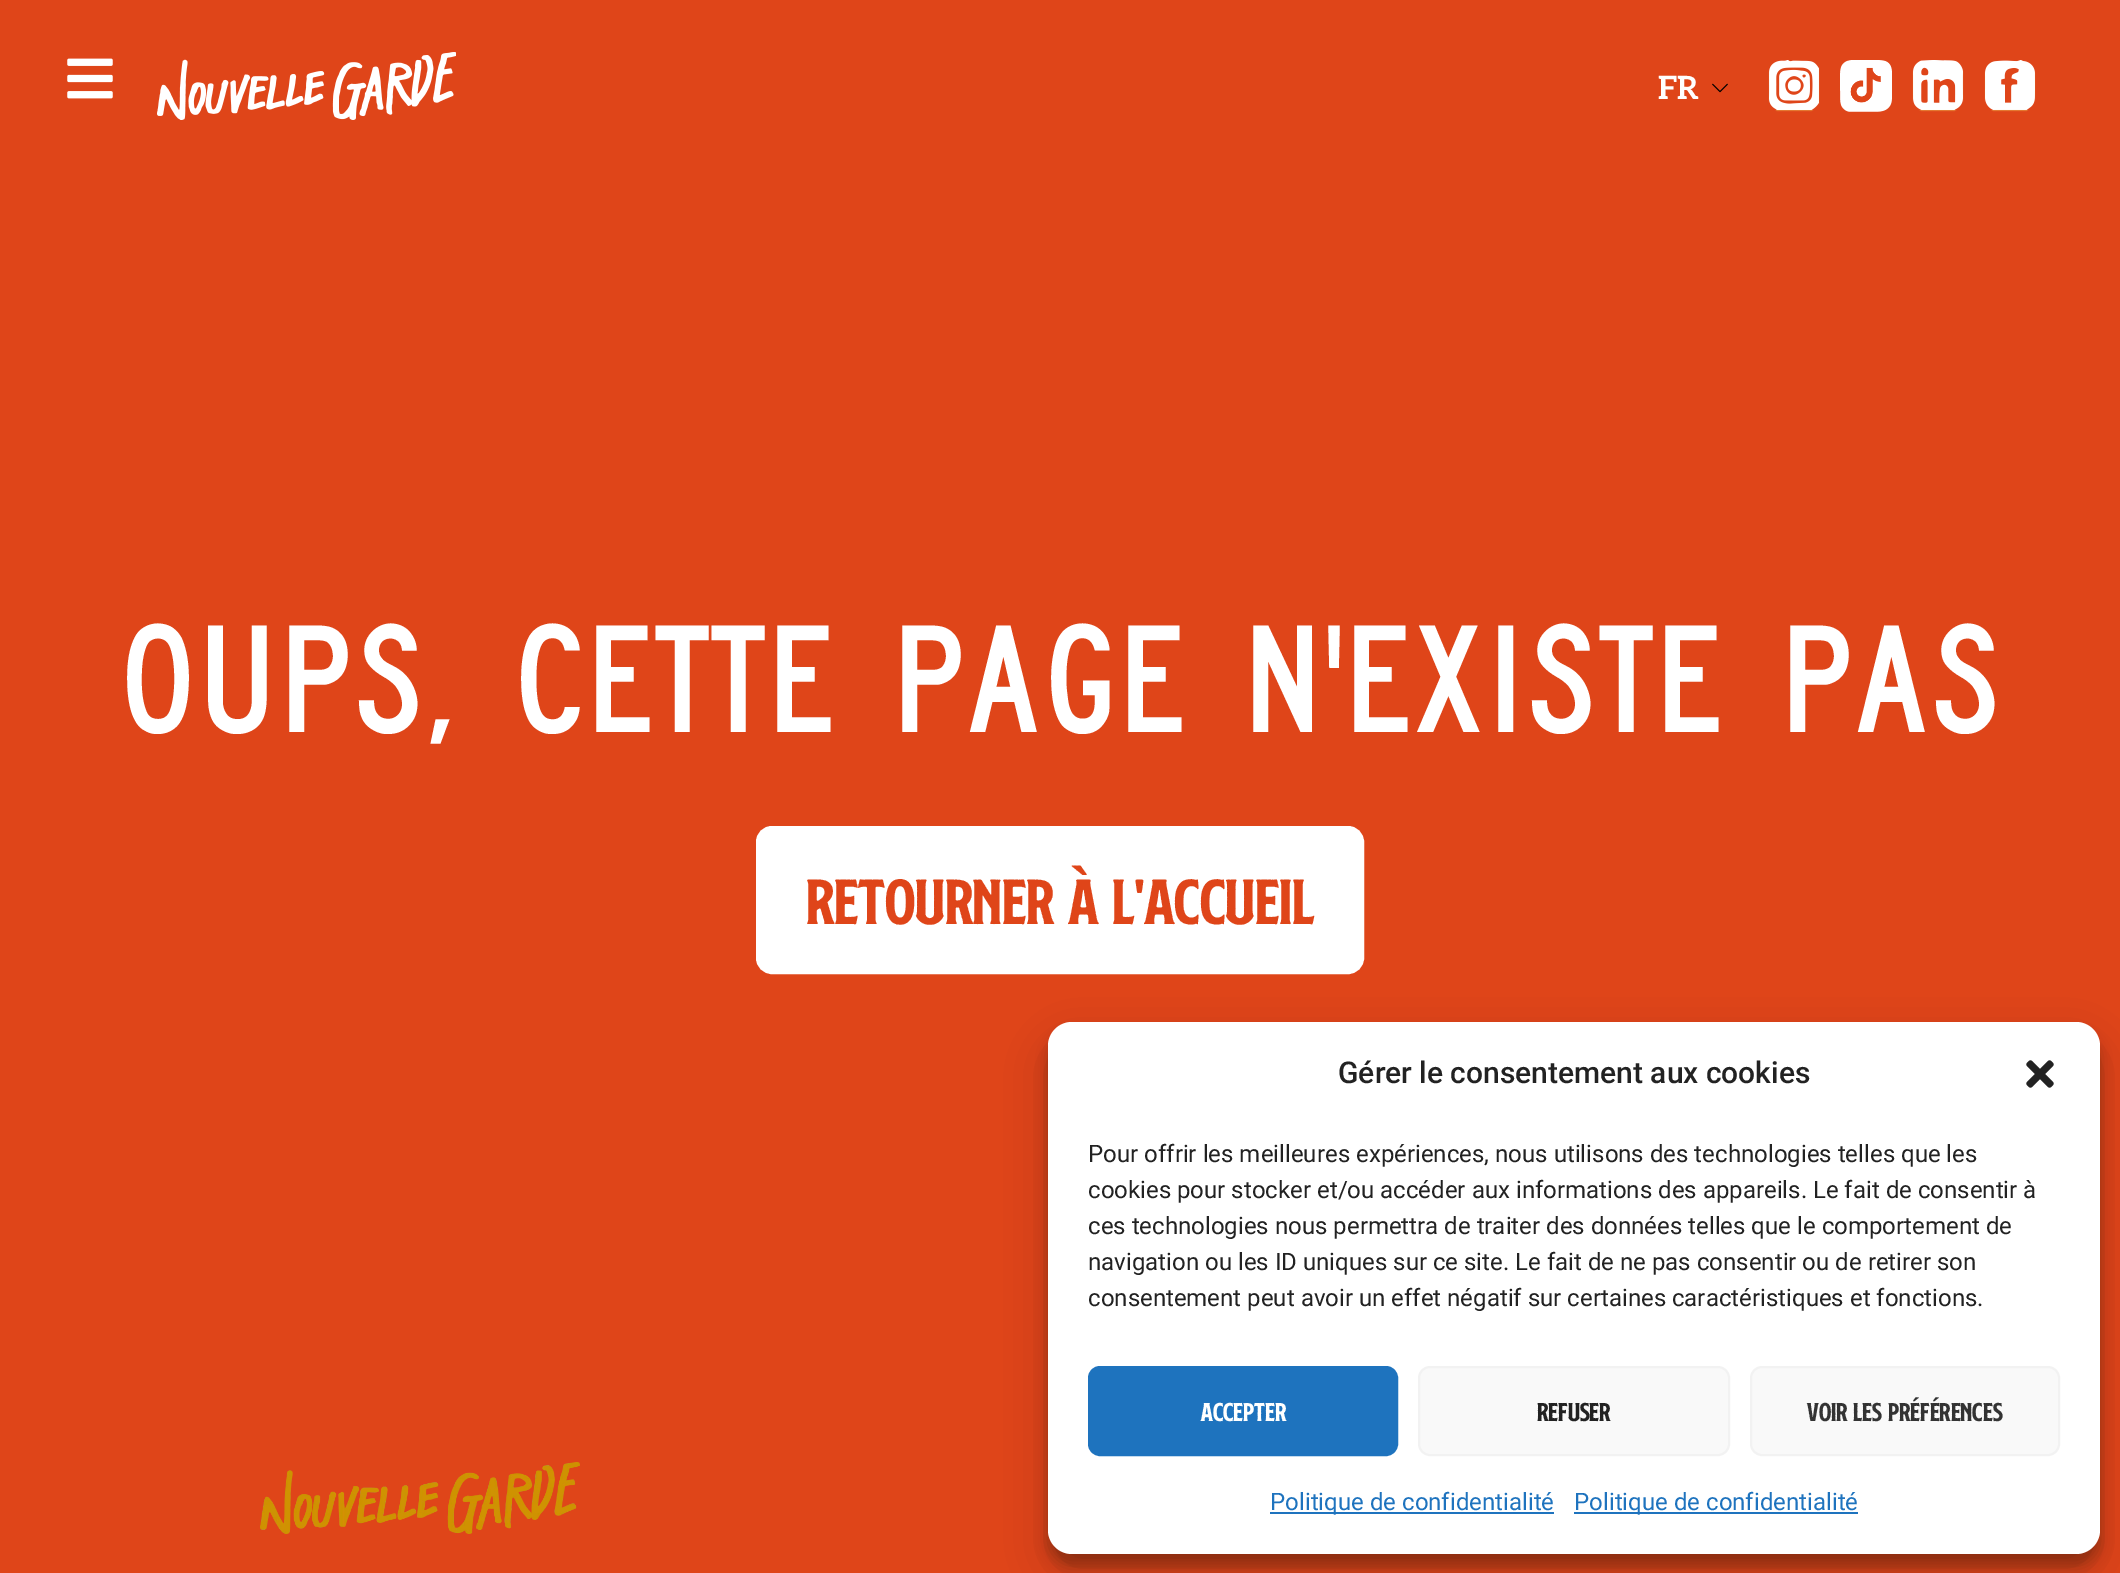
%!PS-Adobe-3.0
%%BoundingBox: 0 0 2120 1573
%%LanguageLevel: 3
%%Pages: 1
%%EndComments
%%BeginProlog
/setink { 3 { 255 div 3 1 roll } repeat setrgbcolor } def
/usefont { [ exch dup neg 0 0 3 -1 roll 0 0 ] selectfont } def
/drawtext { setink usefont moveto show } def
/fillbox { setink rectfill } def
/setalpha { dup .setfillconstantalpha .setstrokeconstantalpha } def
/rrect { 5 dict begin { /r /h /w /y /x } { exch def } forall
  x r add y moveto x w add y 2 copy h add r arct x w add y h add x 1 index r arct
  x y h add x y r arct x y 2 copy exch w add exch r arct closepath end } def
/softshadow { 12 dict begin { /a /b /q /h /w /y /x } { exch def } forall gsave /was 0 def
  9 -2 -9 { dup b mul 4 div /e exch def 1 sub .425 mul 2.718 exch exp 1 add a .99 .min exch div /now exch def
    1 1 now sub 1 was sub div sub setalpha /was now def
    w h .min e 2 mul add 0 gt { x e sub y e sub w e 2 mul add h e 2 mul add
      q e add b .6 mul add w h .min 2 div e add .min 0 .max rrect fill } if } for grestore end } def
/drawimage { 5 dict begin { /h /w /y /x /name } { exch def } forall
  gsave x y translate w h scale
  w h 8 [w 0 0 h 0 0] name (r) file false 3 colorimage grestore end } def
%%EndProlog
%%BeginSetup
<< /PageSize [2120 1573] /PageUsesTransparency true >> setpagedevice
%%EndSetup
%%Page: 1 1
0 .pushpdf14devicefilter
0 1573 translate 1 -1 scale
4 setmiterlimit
0 0 2120 1573 223 69 25 fillbox
(assets/img1.rgb) 67 58 46 41 drawimage
(assets/img2.rgb) 157 52 299 68 drawimage
(assets/img3.rgb) 1712 83 16 10 drawimage
(FR) 1658 99 /Aleo-Bold 32 255 255 255 drawtext
(assets/img4.rgb) 1768 60 52 52 drawimage
(assets/img5.rgb) 1840 60 52 52 drawimage
(assets/img6.rgb) 1912 60 52 52 drawimage
(assets/img7.rgb) 1984 60 52 52 drawimage
(Oups, cette page n'existe pas) 118 732 /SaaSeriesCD-Regular 160 255 255 255 drawtext
757 827 606 146 15 rrect gsave fill grestore
2 setlinewidth
stroke
(Retourner à l'accueil) 806 924 /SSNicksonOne-Bold 74 223 69 25 drawtext
(assets/img8.rgb) 260 1462 320 72 drawimage
0 0 0 setink
1048 1034 1052 532 24 6 0.23 softshadow
1048 1042 1052 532 24 20 0.19 softshadow
255 255 255 setink
1048 1022 1052 532 24 rrect fill
(Gérer le consentement aux cookies) 1338 1083 /Roboto-Medium 30 34 34 34 drawtext
(assets/img9.rgb) 2026 1060 28 28 drawimage
(Pour offrir les meilleures expériences, nous utilisons des technologies telles que les) 1088 1162 /Roboto-Regular 24 34 34 34 drawtext
(cookies pour stocker et/ou accéder aux informations des appareils. Le fait de consentir à) 1088 1198 /Roboto-Regular 24 34 34 34 drawtext
(ces technologies nous permettra de traiter des données telles que le comportement de) 1088 1234 /Roboto-Regular 24 34 34 34 drawtext
(navigation ou les ID uniques sur ce site. Le fait de ne pas consentir ou de retirer son) 1088 1270 /Roboto-Regular 24 34 34 34 drawtext
(consentement peut avoir un effet négatif sur certaines caractéristiques et fonctions.) 1088 1306 /Roboto-Regular 24 34 34 34 drawtext
30 115 190 setink
1089 1367 308 88 11 rrect gsave fill grestore
stroke
(Accepter) 1201 1421 /SSNicksonOne-Bold 30 255 255 255 drawtext
249 249 249 setink
1419 1367 310 88 11 rrect gsave fill grestore
242 242 242 setink
stroke
(Refuser) 1537 1421 /SSNicksonOne-Bold 30 34 34 34 drawtext
249 249 249 setink
1751 1367 308 88 11 rrect gsave fill grestore
242 242 242 setink
stroke
(Voir les préférences) 1807 1421 /SSNicksonOne-Bold 30 51 51 51 drawtext
1270 1512 284 2 30 115 190 fillbox
(Politique de confidentialité) 1270 1510 /Roboto-Regular 24 30 115 190 drawtext
1574 1512 284 2 30 115 190 fillbox
(Politique de confidentialité) 1574 1510 /Roboto-Regular 24 30 115 190 drawtext
.poppdf14devicefilter showpage
%%EOF
